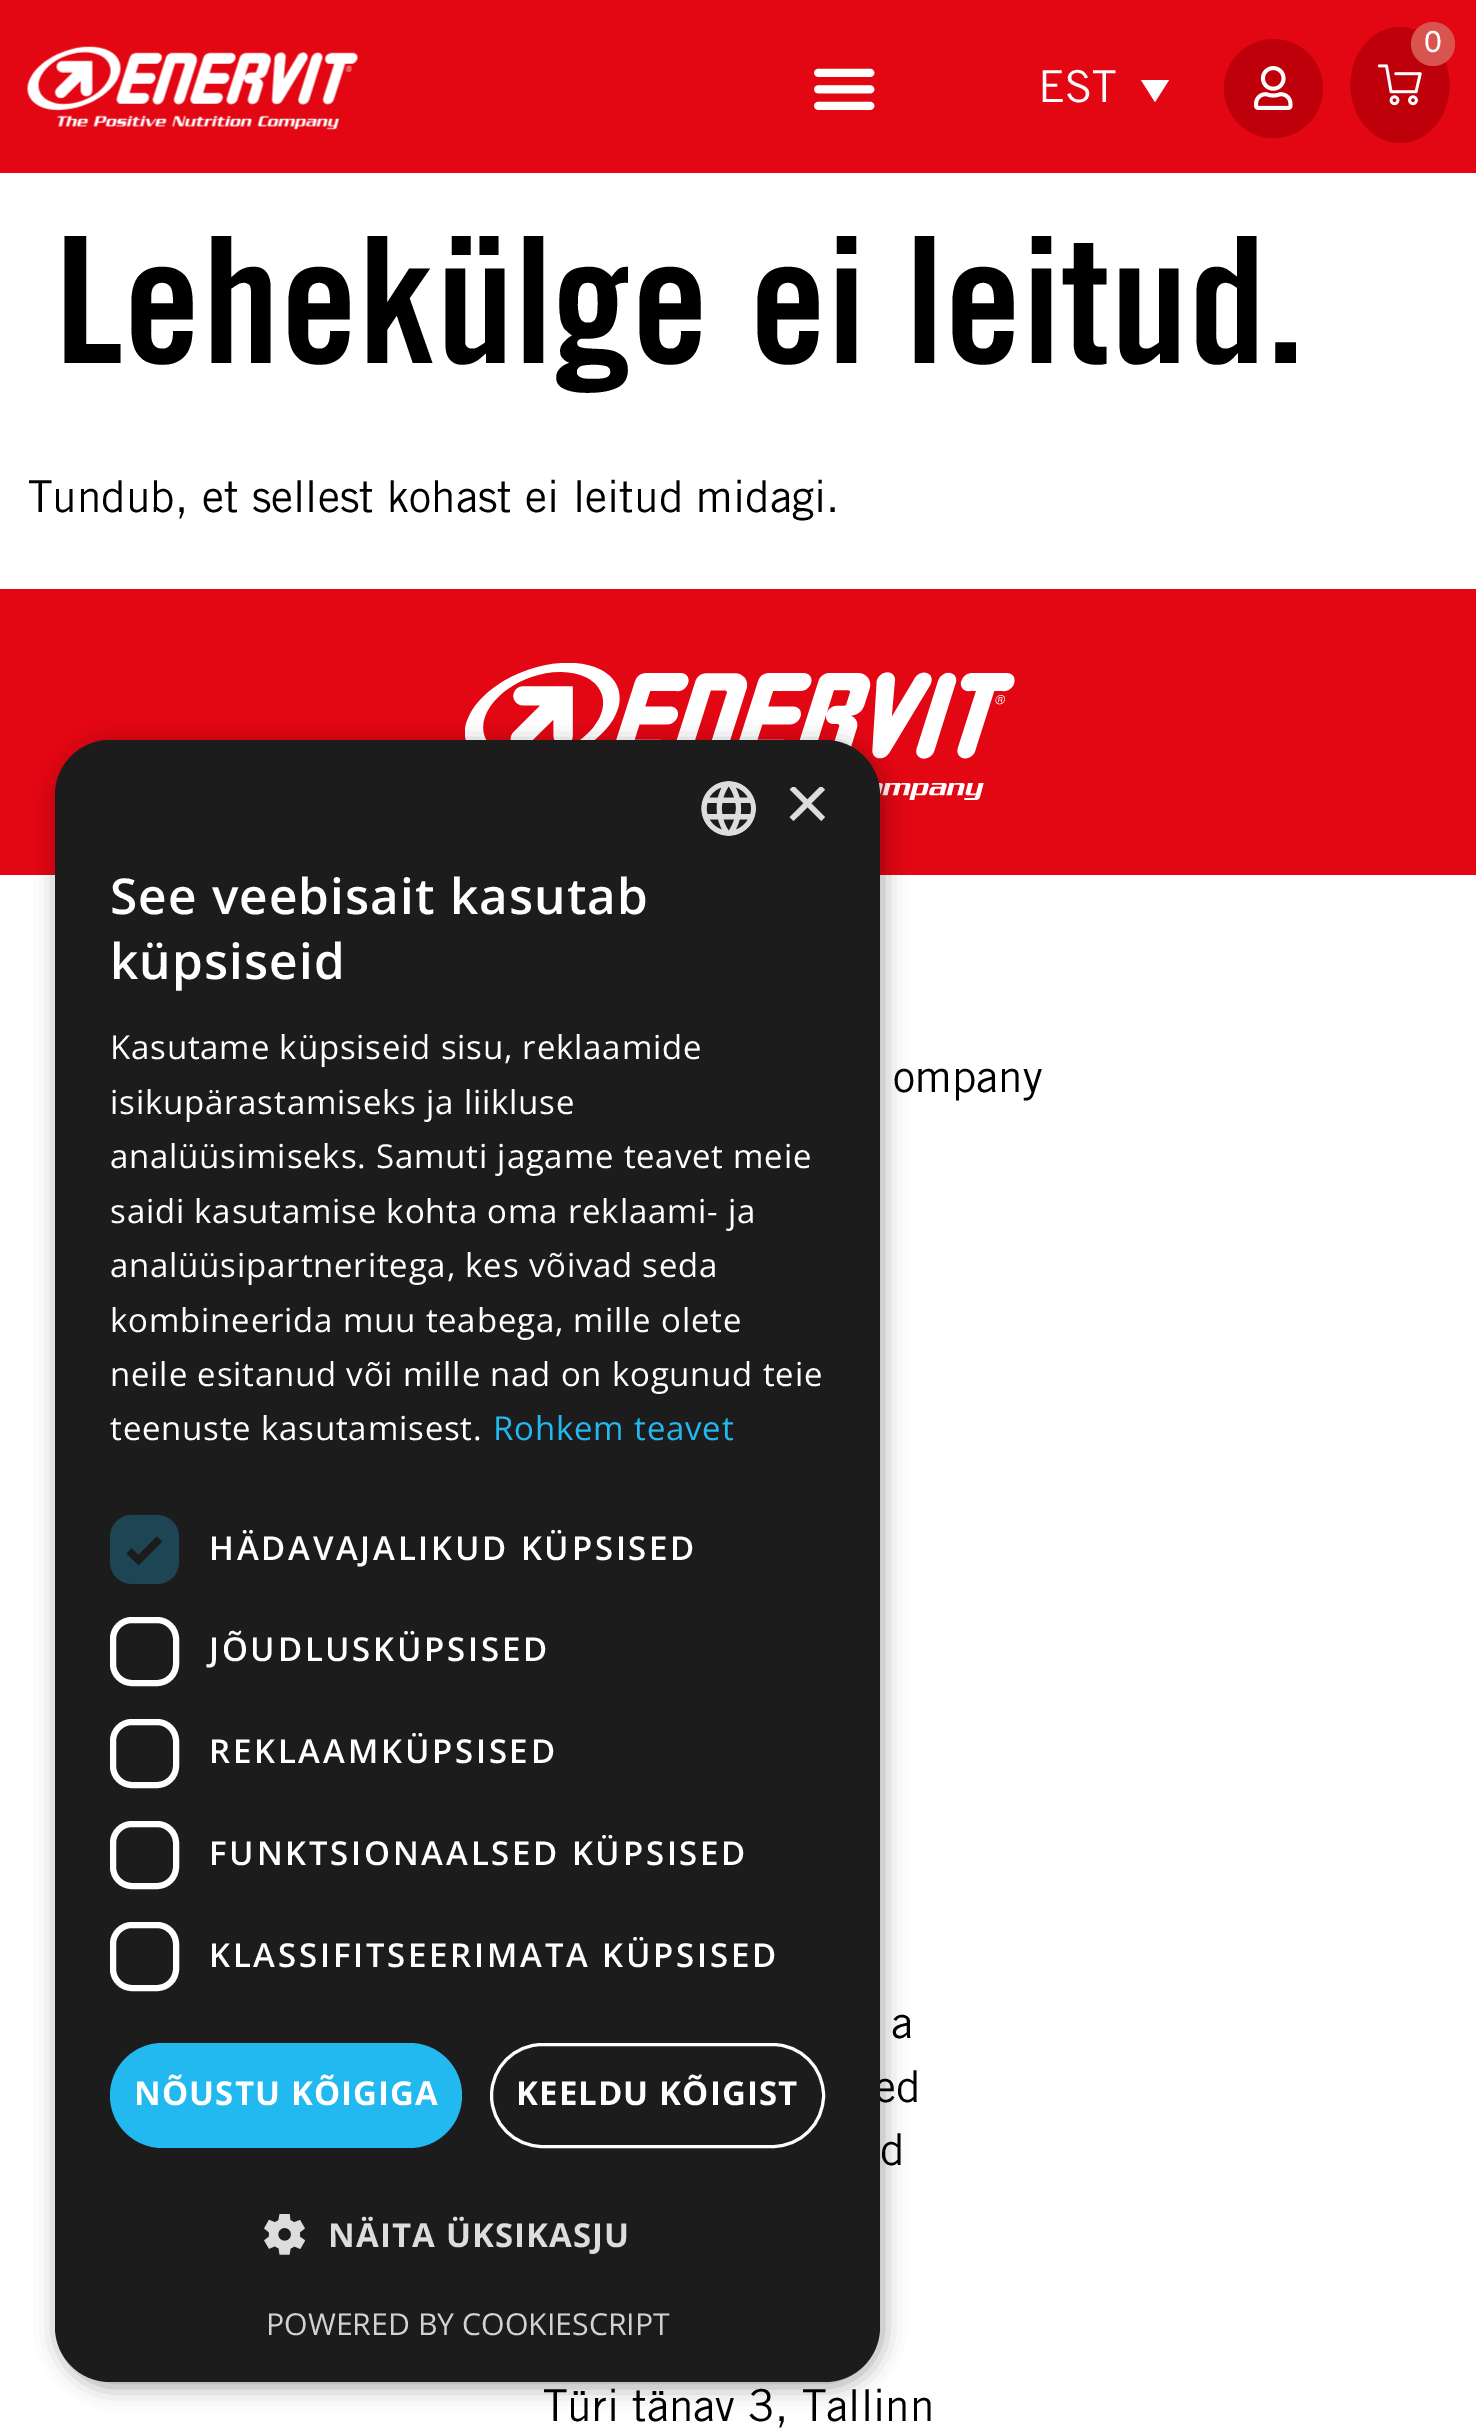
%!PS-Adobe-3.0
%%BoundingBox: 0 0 1476 2436
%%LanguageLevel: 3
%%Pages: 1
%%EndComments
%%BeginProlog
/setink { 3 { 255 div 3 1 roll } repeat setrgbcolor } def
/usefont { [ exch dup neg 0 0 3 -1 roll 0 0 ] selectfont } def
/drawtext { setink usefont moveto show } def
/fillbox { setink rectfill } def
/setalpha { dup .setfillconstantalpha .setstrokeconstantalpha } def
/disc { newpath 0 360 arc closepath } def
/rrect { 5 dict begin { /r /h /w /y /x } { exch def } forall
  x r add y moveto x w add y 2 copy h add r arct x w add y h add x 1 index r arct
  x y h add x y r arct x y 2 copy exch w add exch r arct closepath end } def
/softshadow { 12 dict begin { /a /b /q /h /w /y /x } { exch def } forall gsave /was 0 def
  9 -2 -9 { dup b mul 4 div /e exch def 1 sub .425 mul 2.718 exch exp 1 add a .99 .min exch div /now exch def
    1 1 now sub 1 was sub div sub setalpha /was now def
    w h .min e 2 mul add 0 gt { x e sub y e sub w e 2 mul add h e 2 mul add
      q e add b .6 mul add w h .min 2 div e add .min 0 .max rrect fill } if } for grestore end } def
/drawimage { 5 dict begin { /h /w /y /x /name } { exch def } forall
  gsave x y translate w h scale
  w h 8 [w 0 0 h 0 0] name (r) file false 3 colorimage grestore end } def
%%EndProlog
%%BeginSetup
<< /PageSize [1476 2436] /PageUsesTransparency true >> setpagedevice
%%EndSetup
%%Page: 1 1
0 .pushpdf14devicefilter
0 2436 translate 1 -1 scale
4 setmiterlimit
0 0 1476 2436 255 255 255 fillbox
0 0 1476 173 227 6 19 fillbox
(assets/img1.rgb) 27 46 331 84 drawimage
(assets/img2.rgb) 814 68 61 42 drawimage
(EST) 1038 102 /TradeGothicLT-Regular 44 255 255 255 drawtext
1141 80 moveto 1169 80 lineto 1155 102 lineto closepath fill
190 0 11 setink
1273.5 88.5 49.5 disc fill
(assets/img3.rgb) 1254 66 39 44 drawimage
1400 27 moveto 1427.5 27 1449.5 53 1449.5 85 curveto 1449.5 117 1427.5 143 1400 143 curveto 1372.5 143 1350.5 117 1350.5 85 curveto 1350.5 53 1372.5 27 1400 27 curveto closepath fill
(assets/img4.rgb) 1378 64 44 42 drawimage
217 83 79 setink
1433 44 22 disc fill
(0) 1424 52 /TradeGothicLT-Bold 28 255 255 255 drawtext
(Lehekülge ei leitud.) 55 363 /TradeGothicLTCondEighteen-Bold 176 0 0 0 drawtext
(Tundub, et sellest kohast ei leitud midagi.) 28 512 /TradeGothicLT-Regular 44 0 0 0 drawtext
0 589 1476 286 227 6 19 fillbox
(assets/img7.rgb) 465 663 550 137 drawimage
0 0 0 setink
58 745 825 1642 55 11 0.35 softshadow
(ed) 874 2102 /TradeGothicLT-Regular 44 0 0 0 drawtext
28 28 28 setink
55 740 825 1642 55 rrect fill
(assets/img5.rgb) 701 781 55 55 drawimage
gsave
784 787 41 41 rectclip
(×) 784 830 /LiberationSans-Regular 80 221 221 221 drawtext
grestore
/OpenSans-SemiBold 49.5 usefont
255 255 255 setink
110 914 moveto 1.1 0 (See veebisait kasutab) ashow
110 979 moveto 1.1 0 (küpsiseid) ashow
/OpenSans-Regular 33 usefont
110 1059 moveto 0.8 0 (Kasutame küpsiseid sisu, reklaamide) ashow
110 1114 moveto 0.8 0 (isikupärastamiseks ja liikluse) ashow
110 1168 moveto 0.8 0 (analüüsimiseks. Samuti jagame teavet meie) ashow
110 1223 moveto 0.8 0 (saidi kasutamise kohta oma reklaami- ja) ashow
110 1277 moveto 0.8 0 (analüüsipartneritega, kes võivad seda) ashow
110 1332 moveto 0.8 0 (kombineerida muu teabega, mille olete) ashow
110 1386 moveto 0.8 0 (neile esitanud või mille nad on kogunud teie) ashow
110 1440 moveto 0.8 0 (teenuste kasutamisest.) ashow
34 184 240 setink
493 1440 moveto 0.8 0 (Rohkem teavet) ashow
30 69 83 setink
110 1515 69 69 22 rrect fill
28 28 28 setink
7.2 setlinewidth
129 1551 moveto 138.5 1560 lineto 159.5 1539 lineto stroke
/OpenSans-SemiBold 33 usefont
255 255 255 setink
209 1560 moveto 2.75 0 (HÄDAVAJALIKUD KÜPSISED) ashow
6 setlinewidth
113 1620 63 63 19 rrect stroke
209 1661 moveto 2.75 0 (JÕUDLUSKÜPSISED) ashow
113 1722 63 63 19 rrect stroke
209 1763 moveto 2.75 0 (REKLAAMKÜPSISED) ashow
113 1824 63 62 19 rrect stroke
209 1865 moveto 2.75 0 (FUNKTSIONAALSED KÜPSISED) ashow
113 1925 63 63 19 rrect stroke
209 1967 moveto 2.75 0 (KLASSIFITSEERIMATA KÜPSISED) ashow
34 184 240 setink
110 2043 352 105 52.5 rrect fill
/OpenSans-Bold 33 usefont
255 255 255 setink
134 2105 moveto 1.1 0 (NÕUSTU KÕIGIGA) ashow
3 setlinewidth
491.5 2044.5 332 102 51 rrect stroke
516 2105 moveto 1.1 0 (KEELDU KÕIGIST) ashow
(assets/img6.rgb) 264 2214 41 41 drawimage
221 221 221 setink
328 2247 moveto 1.1 0 (NÄITA ÜKSIKASJU) ashow
(POWERED BY COOKIESCRIPT) 266 2335 /OpenSans-Regular 30.25 210 210 210 drawtext
(ompany) 893 1092 /TradeGothicLT-Regular 44 0 0 0 drawtext
(a) 891 2038 /TradeGothicLT-Regular 44 0 0 0 drawtext
(d) 880 2165 /TradeGothicLT-Regular 44 0 0 0 drawtext
(Türi tänav 3, Tallinn) 543 2421 /TradeGothicLT-Regular 44 0 0 0 drawtext
.poppdf14devicefilter showpage
%%EOF
